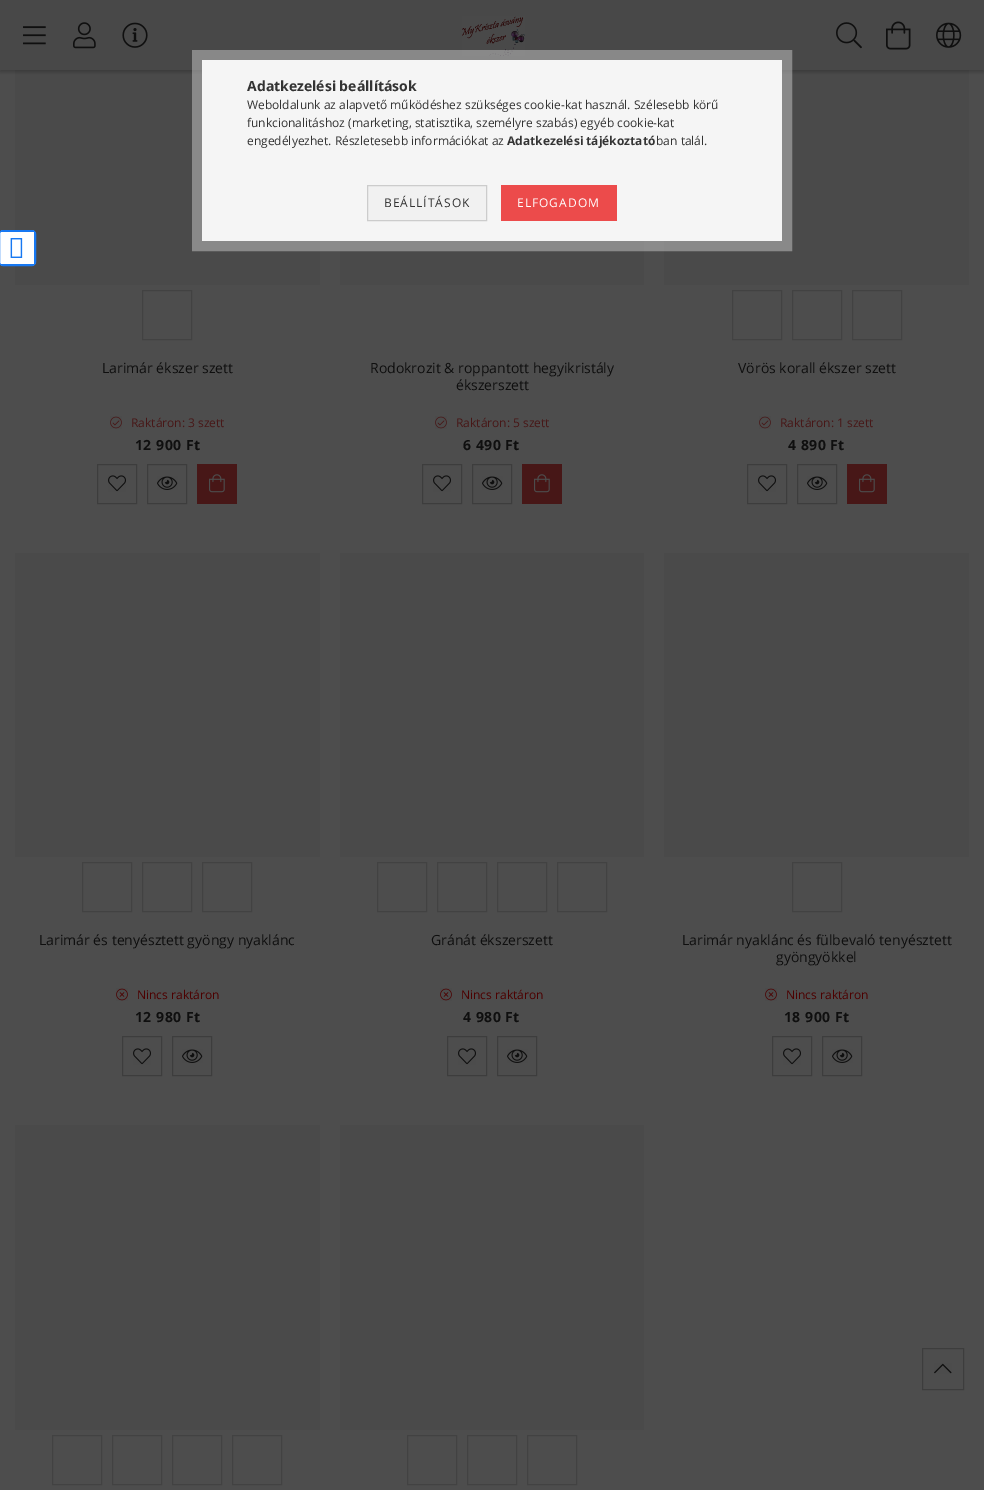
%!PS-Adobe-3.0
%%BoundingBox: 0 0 984 1490
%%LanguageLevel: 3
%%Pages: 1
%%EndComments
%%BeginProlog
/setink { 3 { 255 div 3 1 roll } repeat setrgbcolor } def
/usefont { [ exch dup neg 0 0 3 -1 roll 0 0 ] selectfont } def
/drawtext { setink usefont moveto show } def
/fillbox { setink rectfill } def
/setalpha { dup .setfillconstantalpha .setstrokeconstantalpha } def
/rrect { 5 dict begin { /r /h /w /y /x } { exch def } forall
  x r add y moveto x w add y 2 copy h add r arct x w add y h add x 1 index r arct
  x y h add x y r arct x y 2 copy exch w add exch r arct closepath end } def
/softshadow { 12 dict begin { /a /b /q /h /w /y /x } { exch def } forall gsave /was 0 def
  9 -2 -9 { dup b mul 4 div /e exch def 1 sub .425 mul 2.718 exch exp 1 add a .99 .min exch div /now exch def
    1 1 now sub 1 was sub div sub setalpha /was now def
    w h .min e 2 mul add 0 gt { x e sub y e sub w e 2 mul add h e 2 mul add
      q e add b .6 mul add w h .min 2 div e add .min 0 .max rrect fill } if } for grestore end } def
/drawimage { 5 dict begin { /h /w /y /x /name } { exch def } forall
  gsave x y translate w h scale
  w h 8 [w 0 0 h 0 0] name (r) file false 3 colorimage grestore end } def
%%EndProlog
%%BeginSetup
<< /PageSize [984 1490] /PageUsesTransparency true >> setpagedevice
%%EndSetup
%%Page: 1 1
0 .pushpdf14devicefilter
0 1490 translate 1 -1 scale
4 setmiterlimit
0 0 984 1490 77 77 77 fillbox
15 70 305 215 74 74 74 fillbox
664 70 305 215 74 74 74 fillbox
0 0 0 setink
0 2 984 70 0 1.5 0.2 softshadow
0 0 984 70 72 72 72 fillbox
(assets/img5.rgb) 462 16 63 40 drawimage
340 241 304 44 74 74 74 fillbox
0.5 setalpha
200 200 200 setink
10 setlinewidth
197 55 590 191 rectstroke
1 setalpha
202 60 580 181 245 245 245 fillbox
(Adatkezelési beállítások) 247 91 /OpenSans-Bold 14 51 51 51 drawtext
(Weboldalunk az alapvető működéshez szükséges cookie-kat használ. Szélesebb körű) 247 109 /OpenSans-Regular 12 51 51 51 drawtext
(funkcionalitáshoz \(marketing, statisztika, személyre szabás\) egyéb cookie-kat) 247 127 /OpenSans-Regular 12 51 51 51 drawtext
(engedélyezhet. Részletesebb információkat az) 247 145 /OpenSans-Regular 12 51 51 51 drawtext
(Adatkezelési tájékoztató) 507 145 /OpenSans-Bold 12 51 51 51 drawtext
(ban talál.) 656 145 /OpenSans-Regular 12 51 51 51 drawtext
241 241 241 setink
367.5 185.5 moveto 486.5 185.5 lineto 486.5 220.5 lineto 367.5 220.5 lineto closepath gsave fill grestore
204 204 204 setink
1 setlinewidth
stroke
51 51 51 setink
384 207 moveto 1 0 (BEÁLLÍTÁSOK) ashow
501 185 116 36 236 75 75 fillbox
255 255 255 setink
517 207 moveto 1 0 (ELFOGADOM) ashow
-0.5 230.5 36 35 3.5 rrect gsave fill grestore
23 120 242 setink
stroke
1 231 33 1 23 120 242 fillbox
34 232 1 32 23 120 242 fillbox
1 264 33 1 23 120 242 fillbox
(assets/img1.rgb) 10 238 13 20 drawimage
(assets/img2.rgb) 23 26 23 19 drawimage
(assets/img3.rgb) 73 22 23 27 drawimage
(assets/img4.rgb) 122 22 26 26 drawimage
(assets/img6.rgb) 836 22 26 27 drawimage
(assets/img7.rgb) 886 21 25 29 drawimage
(assets/img8.rgb) 936 22 26 26 drawimage
66 66 66 setink
142.5 290.5 49 49 rectstroke
(Larimár ékszer szett) 102 373 /OpenSans-Regular 14 15 15 15 drawtext
(assets/img9.rgb) 110 416 12 13 drawimage
(Raktáron: 3 szett) 131 427 /OpenSans-Regular 12 71 23 23 drawtext
/OpenSans-Bold 14 usefont
15 15 15 setink
135 450 moveto 0.5 0 (12 900 Ft) ashow
61 61 61 setink
97.5 464.5 39 39 rectstroke
(assets/img10.rgb) 108 475 18 17 drawimage
147.5 464.5 39 39 rectstroke
(assets/img11.rgb) 157 476 21 14 drawimage
197 464 40 40 71 23 23 fillbox
(assets/img12.rgb) 209 474 16 19 drawimage
(Rodokrozit & roppantott hegyikristály) 370 373 /OpenSans-Regular 14 15 15 15 drawtext
(ékszerszett) 456 390 /OpenSans-Regular 14 15 15 15 drawtext
(assets/img9.rgb) 435 416 12 13 drawimage
(Raktáron: 5 szett) 456 427 /OpenSans-Regular 12 71 23 23 drawtext
/OpenSans-Bold 14 usefont
15 15 15 setink
463 450 moveto 0.5 0 (6 490 Ft) ashow
61 61 61 setink
422.5 464.5 39 39 rectstroke
(assets/img10.rgb) 433 475 18 17 drawimage
472.5 464.5 39 39 rectstroke
(assets/img11.rgb) 482 476 21 14 drawimage
522 464 40 40 71 23 23 fillbox
(assets/img12.rgb) 534 474 16 19 drawimage
66 66 66 setink
732.5 290.5 49 49 rectstroke
792.5 290.5 49 49 rectstroke
852.5 290.5 49 49 rectstroke
(Vörös korall ékszer szett) 738 373 /OpenSans-Regular 14 15 15 15 drawtext
(assets/img9.rgb) 759 416 12 13 drawimage
(Raktáron: 1 szett) 780 427 /OpenSans-Regular 12 71 23 23 drawtext
/OpenSans-Bold 14 usefont
15 15 15 setink
788 450 moveto 0.5 0 (4 890 Ft) ashow
61 61 61 setink
747.5 464.5 39 39 rectstroke
(assets/img10.rgb) 758 475 18 17 drawimage
797.5 464.5 39 39 rectstroke
(assets/img11.rgb) 807 476 21 14 drawimage
847 464 40 40 71 23 23 fillbox
(assets/img12.rgb) 859 474 16 19 drawimage
15 553 305 304 74 74 74 fillbox
66 66 66 setink
82.5 862.5 49 49 rectstroke
142.5 862.5 49 49 rectstroke
202.5 862.5 49 49 rectstroke
(Larimár és tenyésztett gyöngy nyaklánc) 39 945 /OpenSans-Regular 14 15 15 15 drawtext
(assets/img13.rgb) 116 988 12 13 drawimage
(Nincs raktáron) 137 999 /OpenSans-Regular 12 76 0 0 drawtext
/OpenSans-Bold 14 usefont
15 15 15 setink
135 1022 moveto 0.5 0 (12 980 Ft) ashow
61 61 61 setink
122.5 1036.5 39 39 rectstroke
(assets/img10.rgb) 133 1048 18 17 drawimage
172.5 1036.5 39 39 rectstroke
(assets/img11.rgb) 182 1049 21 14 drawimage
340 553 304 304 74 74 74 fillbox
66 66 66 setink
377.5 862.5 49 49 rectstroke
437.5 862.5 49 49 rectstroke
497.5 862.5 49 49 rectstroke
557.5 862.5 49 49 rectstroke
(Gránát ékszerszett) 431 945 /OpenSans-Regular 14 15 15 15 drawtext
(assets/img13.rgb) 440 988 12 13 drawimage
(Nincs raktáron) 461 999 /OpenSans-Regular 12 76 0 0 drawtext
/OpenSans-Bold 14 usefont
15 15 15 setink
463 1022 moveto 0.5 0 (4 980 Ft) ashow
61 61 61 setink
447.5 1036.5 39 39 rectstroke
(assets/img10.rgb) 458 1048 18 17 drawimage
497.5 1036.5 39 39 rectstroke
(assets/img11.rgb) 507 1049 21 14 drawimage
664 553 305 304 74 74 74 fillbox
66 66 66 setink
792.5 862.5 49 49 rectstroke
(Larimár nyaklánc és fülbevaló tenyésztett) 682 945 /OpenSans-Regular 14 15 15 15 drawtext
(gyöngyökkel) 776 962 /OpenSans-Regular 14 15 15 15 drawtext
(assets/img13.rgb) 765 988 12 13 drawimage
(Nincs raktáron) 786 999 /OpenSans-Regular 12 76 0 0 drawtext
/OpenSans-Bold 14 usefont
15 15 15 setink
784 1022 moveto 0.5 0 (18 900 Ft) ashow
61 61 61 setink
772.5 1036.5 39 39 rectstroke
(assets/img10.rgb) 783 1048 18 17 drawimage
822.5 1036.5 39 39 rectstroke
(assets/img11.rgb) 832 1049 21 14 drawimage
15 1125 305 305 74 74 74 fillbox
66 66 66 setink
52.5 1435.5 49 49 rectstroke
112.5 1435.5 49 49 rectstroke
172.5 1435.5 49 49 rectstroke
232.5 1435.5 49 49 rectstroke
340 1125 304 305 74 74 74 fillbox
66 66 66 setink
407.5 1435.5 49 49 rectstroke
467.5 1435.5 49 49 rectstroke
527.5 1435.5 49 49 rectstroke
61 61 61 setink
922.5 1348.5 41 41 rectstroke
(assets/img14.rgb) 934 1363 18 11 drawimage
.poppdf14devicefilter showpage
%%EOF
